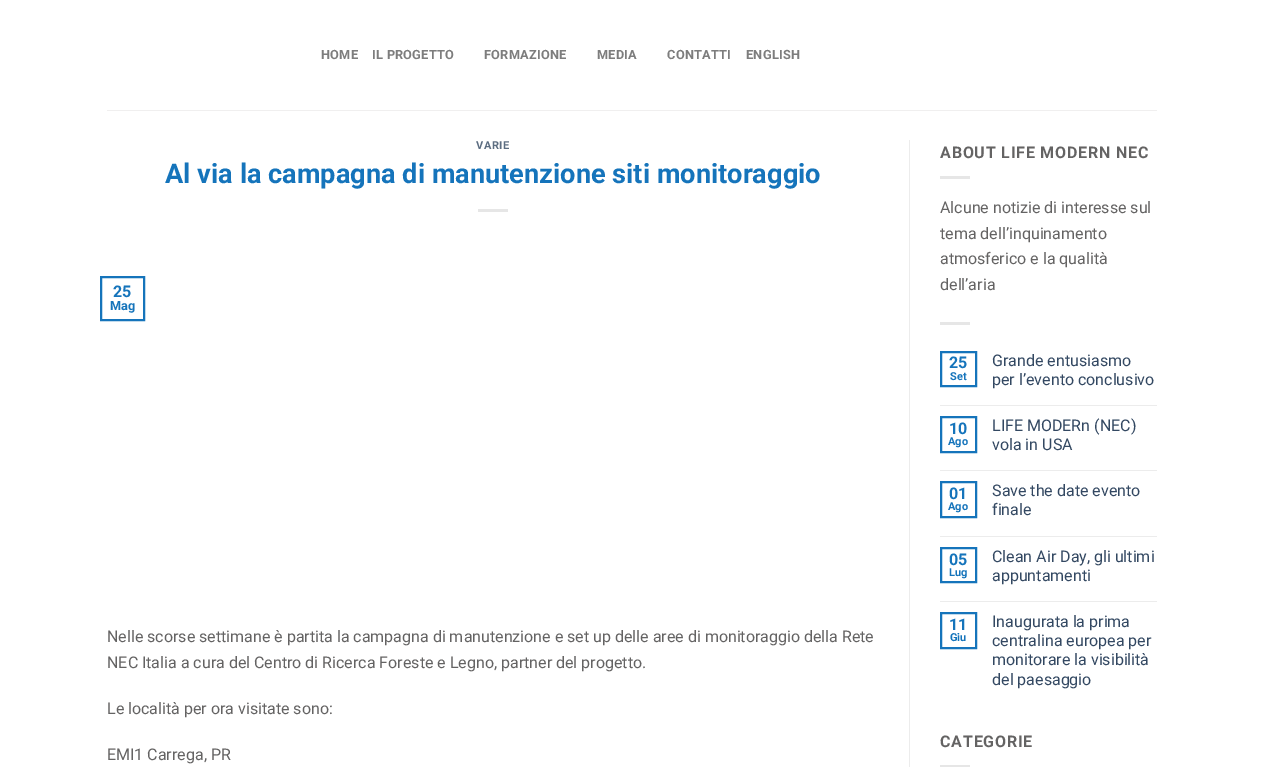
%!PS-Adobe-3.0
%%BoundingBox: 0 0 1263 767
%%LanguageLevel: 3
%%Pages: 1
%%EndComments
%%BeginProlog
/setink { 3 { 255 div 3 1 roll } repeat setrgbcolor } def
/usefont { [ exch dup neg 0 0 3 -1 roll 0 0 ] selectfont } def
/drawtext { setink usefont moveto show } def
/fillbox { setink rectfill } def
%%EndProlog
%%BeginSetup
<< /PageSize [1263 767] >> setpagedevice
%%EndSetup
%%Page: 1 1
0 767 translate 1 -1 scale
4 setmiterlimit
0 0 1263 767 255 255 255 fillbox
/Roboto-Bold 12.75 usefont
125 125 125 setink
321 59 moveto 0.25 0 (HOME) ashow
372 59 moveto 0.25 0 (IL PROGETTO) ashow
484 59 moveto 0.25 0 (FORMAZIONE) ashow
597 59 moveto 0.25 0 (MEDIA) ashow
667 59 moveto 0.25 0 (CONTATTI) ashow
746 59 moveto 0.25 0 (ENGLISH) ashow
107 110 1050 1 240 239 239 fillbox
/Roboto-Bold 11 usefont
92 109 129 setink
476 149 moveto 0.5 0 (VARIE) ashow
(Al via la campagna di manutenzione siti monitoraggio) 165 183 /Roboto-Bold 27.2 21 116 187 drawtext
478 209 30 3 230 230 230 fillbox
21 116 187 setink
2 setlinewidth
101 277 43 43 rectstroke
(25) 113 297 /Roboto-Bold 16 21 116 187 drawtext
(Mag) 110 310 /Roboto-Bold 12.75 21 116 187 drawtext
(Nelle scorse settimane è partita la campagna di manutenzione e set up delle aree di monitoraggio della Rete) 107 642 /Roboto-Regular 16 100 99 99 drawtext
(NEC Italia a cura del Centro di Ricerca Foreste e Legno, partner del progetto.) 107 668 /Roboto-Regular 16 100 99 99 drawtext
(Le località per ora visitate sono:) 107 714 /Roboto-Regular 16 100 99 99 drawtext
(EMI1 Carrega, PR) 107 760 /Roboto-Regular 16 100 99 99 drawtext
909 140 1 627 236 236 236 fillbox
/Roboto-Bold 16 usefont
100 99 99 setink
940 158 moveto 0.8 0 (ABOUT LIFE MODERN NEC) ashow
940 176 30 3 230 230 230 fillbox
(Alcune notizie di interesse sul) 940 213 /Roboto-Regular 16 100 99 99 drawtext
(tema dell’inquinamento) 940 239 /Roboto-Regular 16 100 99 99 drawtext
(atmosferico e la qualità) 940 264 /Roboto-Regular 16 100 99 99 drawtext
(dell’aria) 940 290 /Roboto-Regular 16 100 99 99 drawtext
940 322 30 3 230 230 230 fillbox
21 116 187 setink
941 352 35 34 rectstroke
(25) 949 368 /Roboto-Bold 16 21 116 187 drawtext
(Set) 950 380 /Roboto-Bold 11 21 116 187 drawtext
(Grande entusiasmo) 992 366 /Roboto-Regular 16 51 72 98 drawtext
(per l’evento conclusivo) 992 385 /Roboto-Regular 16 51 72 98 drawtext
940 405 217 1 236 236 236 fillbox
21 116 187 setink
941 417 35 35 rectstroke
(10) 949 434 /Roboto-Bold 16 21 116 187 drawtext
(Ago) 948 445 /Roboto-Bold 11 21 116 187 drawtext
(LIFE MODERn \(NEC\)) 992 431 /Roboto-Regular 16 51 72 98 drawtext
(vola in USA) 992 450 /Roboto-Regular 16 51 72 98 drawtext
940 470 217 1 236 236 236 fillbox
21 116 187 setink
941 482 35 35 rectstroke
(01) 949 499 /Roboto-Bold 16 21 116 187 drawtext
(Ago) 948 510 /Roboto-Bold 11 21 116 187 drawtext
(Save the date evento) 992 496 /Roboto-Regular 16 51 72 98 drawtext
(finale) 992 515 /Roboto-Regular 16 51 72 98 drawtext
940 536 217 1 236 236 236 fillbox
21 116 187 setink
941 548 35 34 rectstroke
(05) 949 565 /Roboto-Bold 16 21 116 187 drawtext
(Lug) 949 576 /Roboto-Bold 11 21 116 187 drawtext
(Clean Air Day, gli ultimi) 992 562 /Roboto-Regular 16 51 72 98 drawtext
(appuntamenti) 992 581 /Roboto-Regular 16 51 72 98 drawtext
940 601 217 1 236 236 236 fillbox
21 116 187 setink
941 613 35 35 rectstroke
(11) 949 630 /Roboto-Bold 16 21 116 187 drawtext
(Giu) 950 641 /Roboto-Bold 11 21 116 187 drawtext
(Inaugurata la prima) 992 627 /Roboto-Regular 16 51 72 98 drawtext
(centralina europea per) 992 646 /Roboto-Regular 16 51 72 98 drawtext
(monitorare la visibilità) 992 665 /Roboto-Regular 16 51 72 98 drawtext
(del paesaggio) 992 685 /Roboto-Regular 16 51 72 98 drawtext
/Roboto-Bold 16 usefont
100 99 99 setink
940 747 moveto 0.8 0 (CATEGORIE) ashow
940 765 30 2 230 230 230 fillbox
showpage
%%EOF
